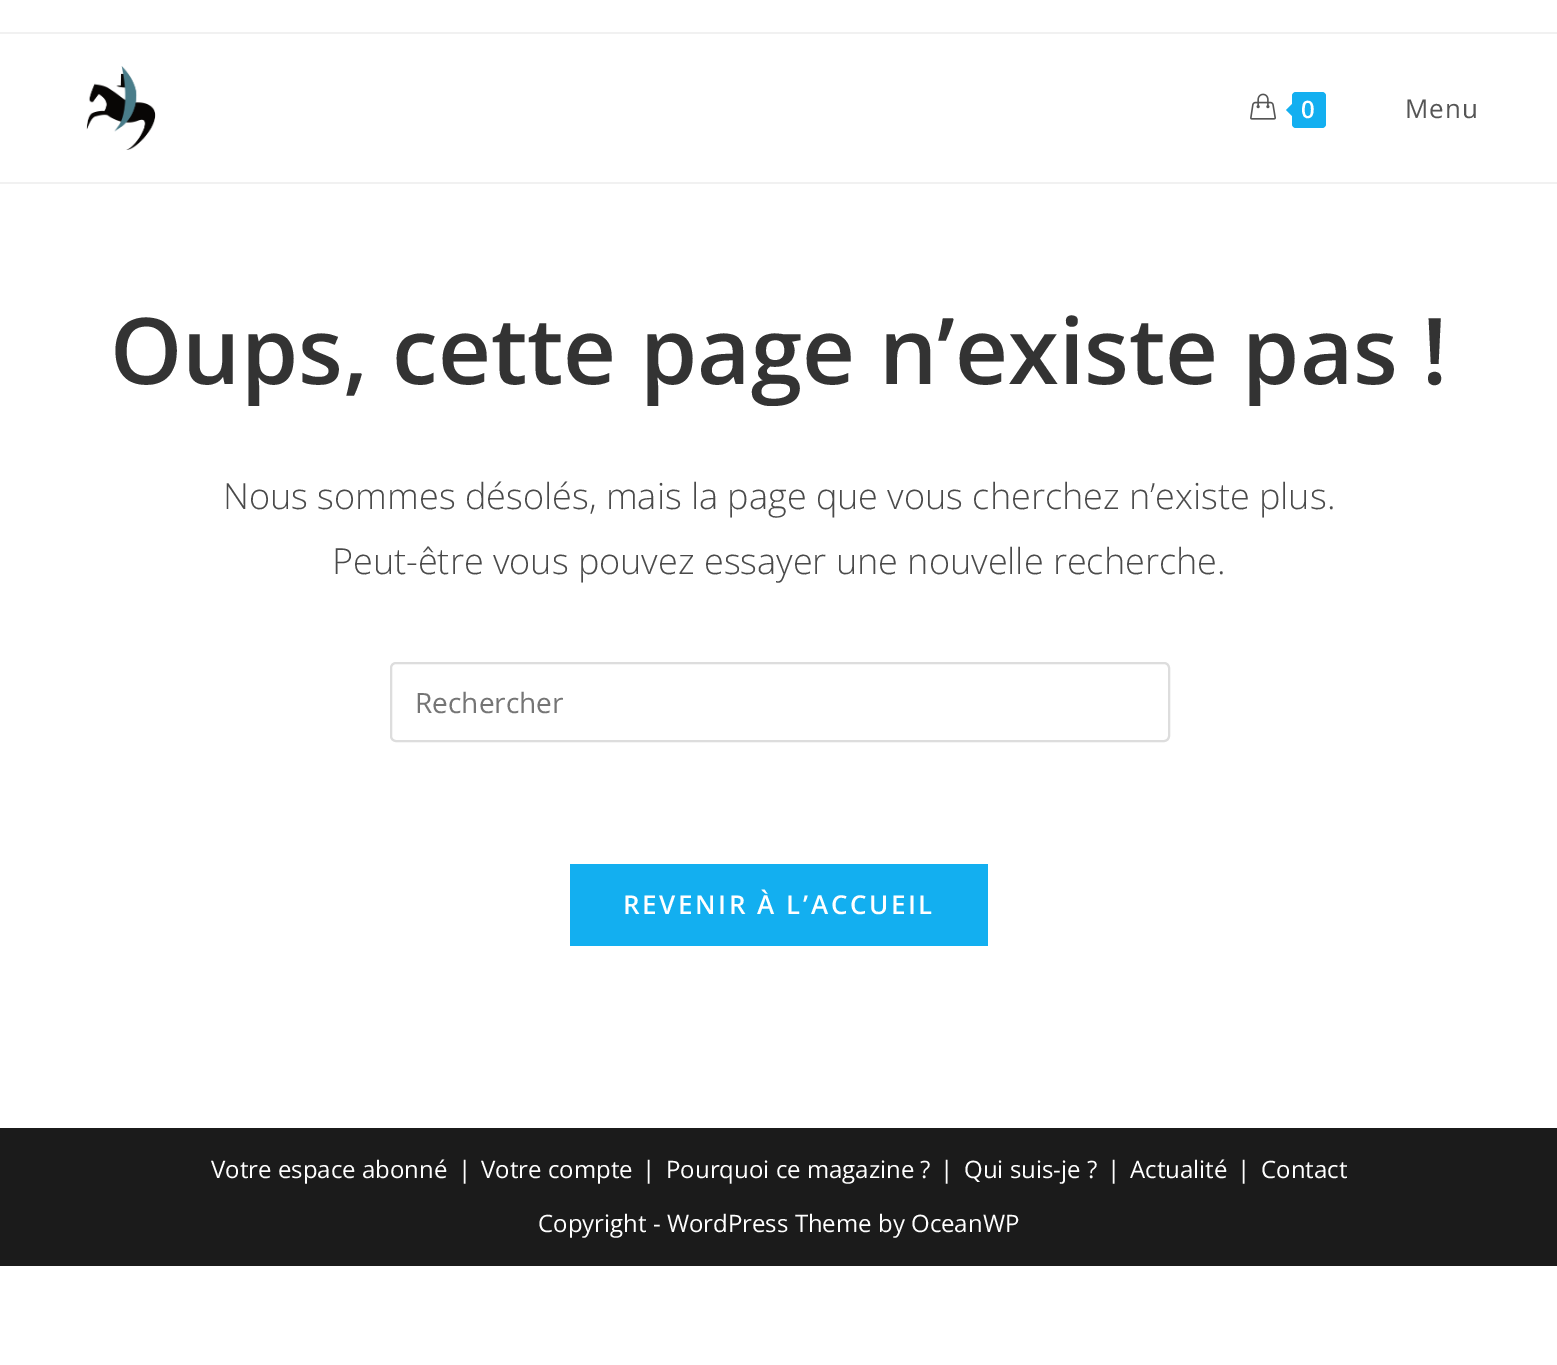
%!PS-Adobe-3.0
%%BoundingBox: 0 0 1557 1365
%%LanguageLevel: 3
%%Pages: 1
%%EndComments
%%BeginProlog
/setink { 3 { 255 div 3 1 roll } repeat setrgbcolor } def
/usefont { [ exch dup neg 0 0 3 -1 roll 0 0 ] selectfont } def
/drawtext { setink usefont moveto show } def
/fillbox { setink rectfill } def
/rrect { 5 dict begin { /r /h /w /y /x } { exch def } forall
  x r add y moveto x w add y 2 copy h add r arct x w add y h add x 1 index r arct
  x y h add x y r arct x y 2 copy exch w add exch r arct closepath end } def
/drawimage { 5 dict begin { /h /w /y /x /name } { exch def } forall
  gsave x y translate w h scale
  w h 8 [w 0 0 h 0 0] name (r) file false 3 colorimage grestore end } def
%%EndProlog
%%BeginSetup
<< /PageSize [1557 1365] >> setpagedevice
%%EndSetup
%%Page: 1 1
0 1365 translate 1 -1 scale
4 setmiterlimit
0 0 1557 1365 255 255 255 fillbox
0 32 1557 2 241 241 241 fillbox
0 182 1557 2 241 241 241 fillbox
(assets/img1.rgb) 86 66 70 84 drawimage
(assets/img2.rgb) 1250 93 26 27 drawimage
19 175 240 setink
1292 92 34 36 4 rrect fill
1296 100 moveto 1296 120 lineto 1286 110 lineto closepath fill
/OpenSans-SemiBold 24 usefont
255 255 255 setink
1301 118 moveto 1 0 (0) ashow
/OpenSans-Regular 26 usefont
85 85 85 setink
1405 118 moveto 1 0 (Menu) ashow
(Oups, cette page n’existe pas !) 110 384 /OpenSans-SemiBold 92 51 51 51 drawtext
(Nous sommes désolés, mais la page que vous cherchez n’existe plus.) 223 509 /OpenSans-Light 36 74 74 74 drawtext
(Peut-être vous pouvez essayer une nouvelle recherche.) 332 574 /OpenSans-Light 36 74 74 74 drawtext
221 221 221 setink
2 setlinewidth
391 663 778 78 5 rrect stroke
(Rechercher) 415 713 /OpenSans-Regular 28 117 117 117 drawtext
570 864 418 82 19 175 240 fillbox
/OpenSans-SemiBold 26 usefont
255 255 255 setink
623 914 moveto 2.6 0 (REVENIR À L’ACCUEIL) ashow
0 1128 1557 138 27 27 27 fillbox
(Votre espace abonné) 211 1178 /OpenSans-Regular 24 255 255 255 drawtext
(|) 458 1178 /OpenSans-Regular 24 255 255 255 drawtext
(Votre compte) 481 1178 /OpenSans-Regular 24 255 255 255 drawtext
(|) 642 1178 /OpenSans-Regular 24 255 255 255 drawtext
(Pourquoi ce magazine ?) 666 1178 /OpenSans-Regular 24 255 255 255 drawtext
(|) 940 1178 /OpenSans-Regular 24 255 255 255 drawtext
(Qui suis-je ?) 964 1178 /OpenSans-Regular 24 255 255 255 drawtext
(|) 1107 1178 /OpenSans-Regular 24 255 255 255 drawtext
(Actualité) 1130 1178 /OpenSans-Regular 24 255 255 255 drawtext
(|) 1237 1178 /OpenSans-Regular 24 255 255 255 drawtext
(Contact) 1261 1178 /OpenSans-Regular 24 255 255 255 drawtext
(Copyright - WordPress Theme by OceanWP) 538 1232 /OpenSans-Regular 24 255 255 255 drawtext
showpage
%%EOF
